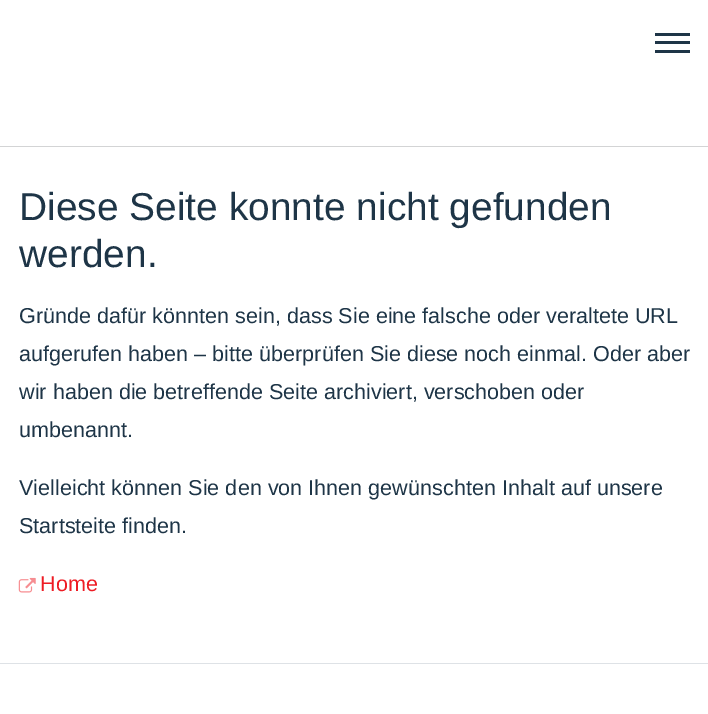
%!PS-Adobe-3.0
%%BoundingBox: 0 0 708 714
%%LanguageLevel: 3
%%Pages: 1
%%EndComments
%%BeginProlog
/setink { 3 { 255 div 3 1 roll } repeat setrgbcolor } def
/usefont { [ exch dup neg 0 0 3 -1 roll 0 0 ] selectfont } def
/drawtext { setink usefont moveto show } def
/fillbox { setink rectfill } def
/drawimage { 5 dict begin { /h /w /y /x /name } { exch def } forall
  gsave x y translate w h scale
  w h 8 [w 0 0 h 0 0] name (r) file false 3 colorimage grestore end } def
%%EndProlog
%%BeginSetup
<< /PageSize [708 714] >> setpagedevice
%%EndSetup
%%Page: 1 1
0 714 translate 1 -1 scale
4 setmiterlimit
0 0 708 714 255 255 255 fillbox
0 146 708 1 211 212 213 fillbox
655 33 35 3 30 53 71 fillbox
655 41 35 3 30 53 71 fillbox
655 50 35 3 30 53 71 fillbox
(Diese Seite konnte nicht gefunden) 19 220 /LiberationSans-Regular 38.9 30 53 71 drawtext
(werden.) 19 267 /LiberationSans-Regular 38.9 30 53 71 drawtext
(Gründe dafür könnten sein, dass Sie eine falsche oder veraltete URL) 19 323 /LiberationSans-Regular 21.6 30 53 71 drawtext
(aufgerufen haben – bitte überprüfen Sie diese noch einmal. Oder aber) 19 361 /LiberationSans-Regular 21.6 30 53 71 drawtext
(wir haben die betreffende Seite archiviert, verschoben oder) 19 399 /LiberationSans-Regular 21.6 30 53 71 drawtext
(umbenannt.) 19 437 /LiberationSans-Regular 21.6 30 53 71 drawtext
(Vielleicht können Sie den von Ihnen gewünschten Inhalt auf unsere) 19 495 /LiberationSans-Regular 21.6 30 53 71 drawtext
(Startsteite finden.) 19 533 /LiberationSans-Regular 21.6 30 53 71 drawtext
(assets/img1.rgb) 18 577 18 16 drawimage
(Home) 40 591 /LiberationSans-Regular 21.6 238 28 36 drawtext
0 663 708 1 222 226 230 fillbox
showpage
%%EOF
